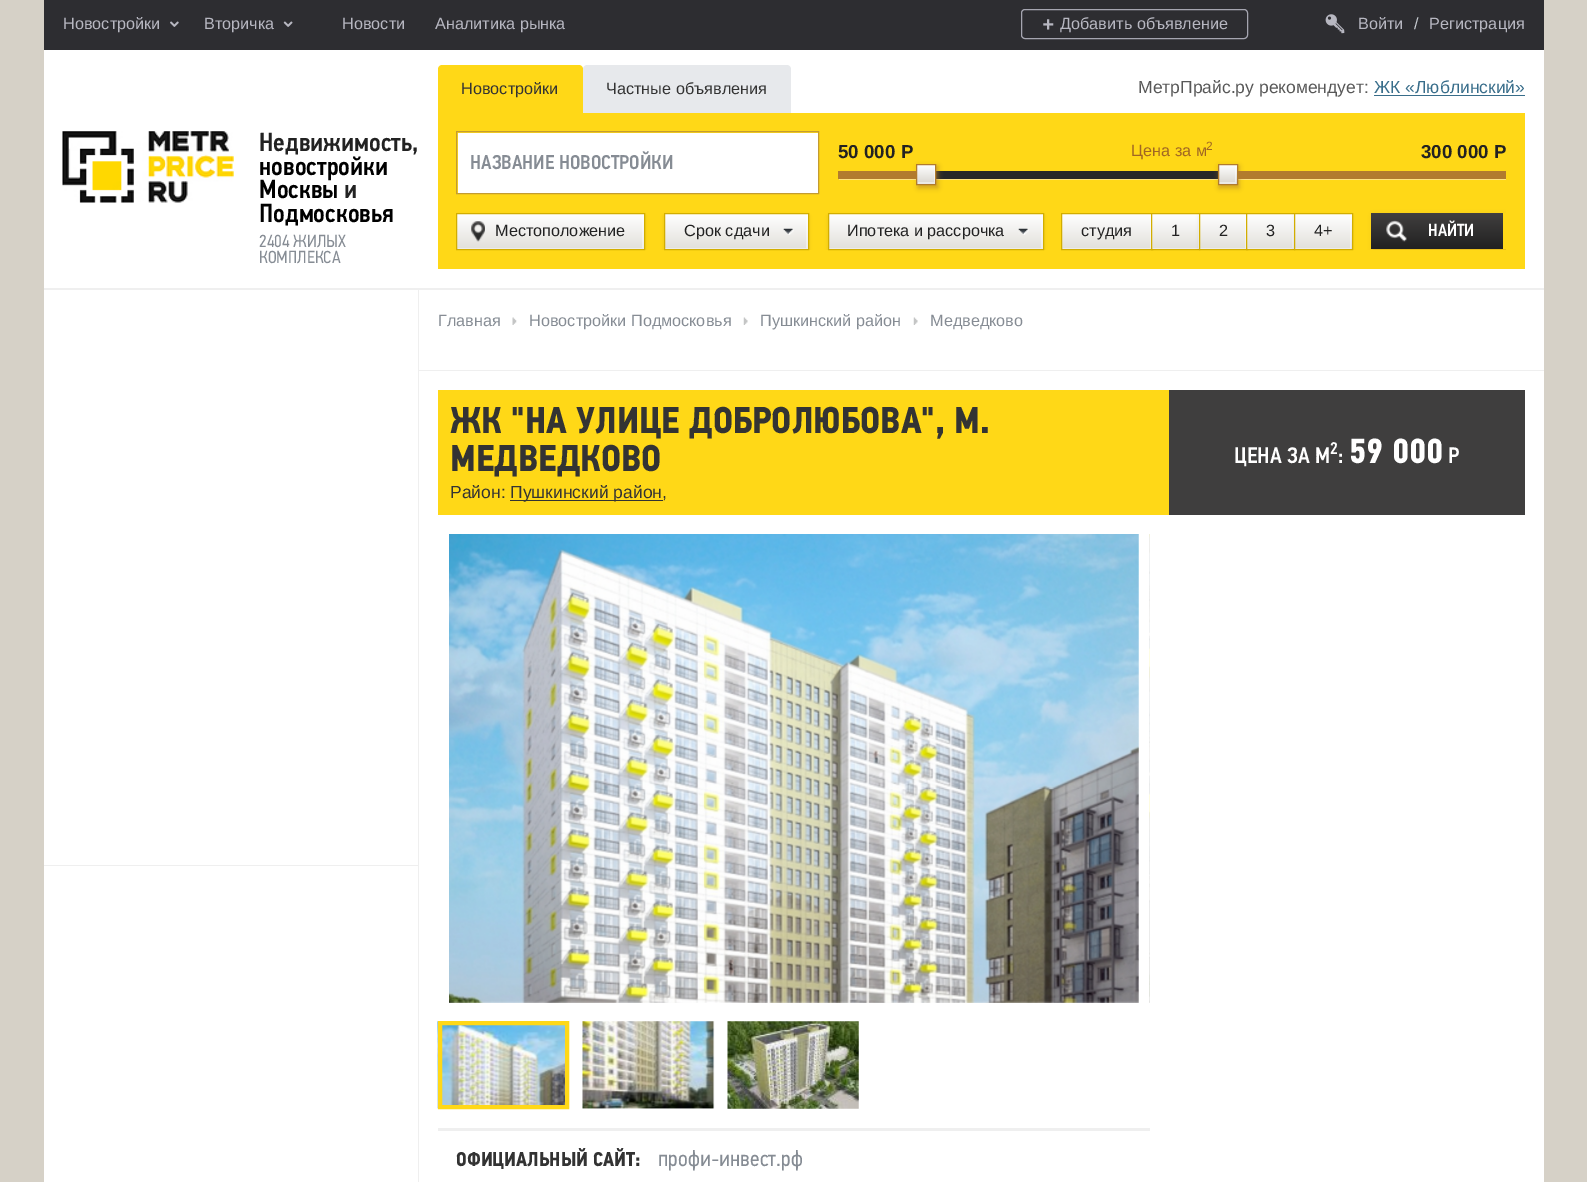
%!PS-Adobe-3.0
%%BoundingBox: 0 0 1587 1182
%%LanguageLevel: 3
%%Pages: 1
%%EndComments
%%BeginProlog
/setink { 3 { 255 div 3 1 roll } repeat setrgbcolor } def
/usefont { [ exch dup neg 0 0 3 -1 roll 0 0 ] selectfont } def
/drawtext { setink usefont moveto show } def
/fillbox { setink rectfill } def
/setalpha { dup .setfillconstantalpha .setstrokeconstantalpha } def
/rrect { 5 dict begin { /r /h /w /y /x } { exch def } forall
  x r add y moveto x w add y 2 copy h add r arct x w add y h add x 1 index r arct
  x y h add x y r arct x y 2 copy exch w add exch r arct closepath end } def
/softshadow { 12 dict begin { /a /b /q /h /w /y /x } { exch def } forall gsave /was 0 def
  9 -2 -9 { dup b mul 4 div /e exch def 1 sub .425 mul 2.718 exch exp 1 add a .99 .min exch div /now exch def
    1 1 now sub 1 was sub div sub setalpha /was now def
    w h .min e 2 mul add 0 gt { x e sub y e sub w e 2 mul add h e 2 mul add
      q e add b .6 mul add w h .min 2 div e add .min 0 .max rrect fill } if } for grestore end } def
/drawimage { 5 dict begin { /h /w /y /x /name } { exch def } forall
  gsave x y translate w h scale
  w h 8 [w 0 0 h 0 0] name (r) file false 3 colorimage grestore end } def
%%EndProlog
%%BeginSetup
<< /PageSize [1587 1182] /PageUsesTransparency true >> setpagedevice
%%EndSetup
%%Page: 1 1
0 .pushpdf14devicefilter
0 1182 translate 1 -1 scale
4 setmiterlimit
0 0 1587 1182 214 209 199 fillbox
44 0 1500 50 45 45 49 fillbox
(Новостройки) 63 29 /LiberationSans-Regular 16.25 183 183 193 drawtext
(assets/img1.rgb) 170 21 9 6 drawimage
(Вторичка) 204 29 /LiberationSans-Regular 16.25 183 183 193 drawtext
(assets/img2.rgb) 283 21 10 6 drawimage
(Новости) 342 29 /LiberationSans-Regular 16.25 183 183 193 drawtext
(Аналитика рынка) 435 29 /LiberationSans-Regular 16.25 183 183 193 drawtext
165 165 176 setink
1021.5 9.5 226 29 3.5 rrect stroke
(+) 1042 31 /LiberationSans-BoldItalic 20 183 183 193 drawtext
(Добавить объявление) 1060 29 /LiberationSans-Regular 16.25 183 183 193 drawtext
(assets/img3.rgb) 1325 14 20 20 drawimage
(Войти) 1358 29 /LiberationSans-Regular 16.25 183 183 193 drawtext
(/) 1414 29 /LiberationSans-Regular 16.25 199 203 209 drawtext
(Регистрация) 1429 29 /LiberationSans-Regular 16.25 183 183 193 drawtext
44 50 1500 1132 255 255 255 fillbox
(assets/img4.rgb) 62 131 172 72 drawimage
(Недвижимость,) 259 151 /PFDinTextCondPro-Medium 26.25 34 34 34 drawtext
(новостройки) 259 175 /PFDinTextCondPro-Medium 26.25 0 0 0 drawtext
(Москвы) 259 198 /PFDinTextCondPro-Medium 26.25 0 0 0 drawtext
(и) 344 198 /PFDinTextCondPro-Medium 26.25 34 34 34 drawtext
(Подмосковья) 259 222 /PFDinTextCondPro-Medium 26.25 0 0 0 drawtext
(2404 ЖИЛЫХ) 259 247 /PFDinTextCondPro-Regular 17.5 134 140 148 drawtext
(КОМПЛЕКСА) 259 263 /PFDinTextCondPro-Regular 17.5 134 140 148 drawtext
438 113 1087 156 255 216 23 fillbox
442 65 moveto 579 65 lineto 581 65 583 67 583 69 curveto 583 113 lineto 438 113 lineto 438 69 lineto 438 67 440 65 442 65 curveto closepath fill
(Новостройки) 461 94 /LiberationSans-Regular 16.25 51 51 51 drawtext
231 233 236 setink
587 65 moveto 787 65 lineto 789 65 791 67 791 69 curveto 791 113 lineto 583 113 lineto 583 69 lineto 583 67 585 65 587 65 curveto closepath fill
(Частные объявления) 606 94 /LiberationSans-Regular 16.25 51 51 51 drawtext
(МетрПрайс.ру рекомендует:) 1138 93 /LiberationSans-Regular 17.5 88 88 88 drawtext
(ЖК «Люблинский») 1374 93 /LiberationSans-Regular 17.5 56 109 138 drawtext
1374 95 151 1 56 109 138 fillbox
458 133 360 60 255 255 255 fillbox
195 156 50 setink
456.5 131.5 362 62 rectstroke
(НАЗВАНИЕ НОВОСТРОЙКИ) 470 169 /PFDinTextCondPro-Medium 20 134 140 148 drawtext
(50 000 Р) 838 158 /LiberationSans-Bold 18.75 34 34 34 drawtext
(Цена за м) 1131 156 /LiberationSans-Regular 16.25 160 102 35 drawtext
(2) 1206 150 /LiberationSans-Regular 12 160 102 35 drawtext
(300 000 Р) 1421 158 /LiberationSans-Bold 18.75 34 34 34 drawtext
gsave
456 131 1050 119 rectclip
255 227 129 setink
839 179 moveto 839 180 lineto 1508 180 lineto 1508 173 lineto 1506 173 lineto 1506 179 lineto closepath fill
grestore
838 171 78 8 178 123 46 fillbox
936 171 282 8 39 39 39 fillbox
176 127 41 setink
918 166 20 22 0 2.5 0.59 softshadow
gsave 917 165 moveto 935 165 lineto 935 184 lineto 917 184 lineto closepath clip newpath
<< /ShadingType 2 /ColorSpace /DeviceRGB /Coords [926 184 926 165] /Extend [true true] /Function << /FunctionType 2 /Domain [0 1] /C0 [0.847 0.835 0.808] /C1 [1 1 1] /N 1 >> >> shfill grestore
gsave
918 165 17 19 rectclip
0.45 setalpha
255 255 255 setink
794 41 moveto 1059 41 lineto 1059 308 lineto 794 308 lineto closepath 916 164 moveto 934 164 lineto 934 182 lineto 916 182 lineto closepath eofill
grestore
177 123 45 setink
916.5 164.5 19 20 rectstroke
1238 171 268 8 178 123 46 fillbox
176 127 41 setink
1219 166 20 22 0 2.5 0.59 softshadow
gsave 1219 165 moveto 1237 165 lineto 1237 184 lineto 1219 184 lineto closepath clip newpath
<< /ShadingType 2 /ColorSpace /DeviceRGB /Coords [1228 184 1228 165] /Extend [true true] /Function << /FunctionType 2 /Domain [0 1] /C0 [0.847 0.835 0.808] /C1 [1 1 1] /N 1 >> >> shfill grestore
gsave
1219 165 17 19 rectclip
0.45 setalpha
255 255 255 setink
1095 41 moveto 1360 41 lineto 1360 308 lineto 1095 308 lineto closepath 1218 164 moveto 1235 164 lineto 1235 182 lineto 1218 182 lineto closepath eofill
grestore
177 123 45 setink
1218.5 164.5 19 20 rectstroke
gsave
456 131 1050 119 rectclip
0 0 0 setink
458 216 186 35 0 2 0.15 softshadow
grestore
gsave 457 214 moveto 644 214 lineto 644 249 lineto 457 249 lineto closepath clip newpath
<< /ShadingType 2 /ColorSpace /DeviceRGB /Coords [551 249 551 214] /Extend [true true] /Function << /FunctionType 2 /Domain [0 1] /C0 [0.886 0.878 0.859] /C1 [1 1 1] /N 1 >> >> shfill grestore
gsave
458 214 186 35 rectclip
0.4 setalpha
255 255 255 setink
334 90 moveto 768 90 lineto 768 372 lineto 334 372 lineto closepath 456 212 moveto 642 212 lineto 642 248 lineto 456 248 lineto closepath eofill
grestore
210 173 0 setink
456.5 213.5 188 36 rectstroke
(assets/img5.rgb) 471 221 14 21 drawimage
(Местоположение) 495 236 /LiberationSans-Regular 16.25 34 34 34 drawtext
gsave
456 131 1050 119 rectclip
0 0 0 setink
665 216 143 35 0 2 0.15 softshadow
grestore
gsave 665 214 moveto 808 214 lineto 808 249 lineto 665 249 lineto closepath clip newpath
<< /ShadingType 2 /ColorSpace /DeviceRGB /Coords [736 249 736 214] /Extend [true true] /Function << /FunctionType 2 /Domain [0 1] /C0 [0.886 0.878 0.859] /C1 [1 1 1] /N 1 >> >> shfill grestore
gsave
665 214 143 35 rectclip
0.4 setalpha
255 255 255 setink
541 90 moveto 931 90 lineto 931 372 lineto 541 372 lineto closepath 664 212 moveto 806 212 lineto 806 248 lineto 664 248 lineto closepath eofill
grestore
210 173 0 setink
664.5 213.5 144 36 rectstroke
(Срок сдачи) 684 236 /LiberationSans-Regular 16.25 34 34 34 drawtext
(assets/img6.rgb) 783 228 11 7 drawimage
gsave
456 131 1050 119 rectclip
0 0 0 setink
829 216 214 35 0 2 0.15 softshadow
grestore
gsave 829 214 moveto 1043 214 lineto 1043 249 lineto 829 249 lineto closepath clip newpath
<< /ShadingType 2 /ColorSpace /DeviceRGB /Coords [936 249 936 214] /Extend [true true] /Function << /FunctionType 2 /Domain [0 1] /C0 [0.886 0.878 0.859] /C1 [1 1 1] /N 1 >> >> shfill grestore
gsave
829 214 214 35 rectclip
0.4 setalpha
255 255 255 setink
705 90 moveto 1166 90 lineto 1166 372 lineto 705 372 lineto closepath 828 212 moveto 1041 212 lineto 1041 248 lineto 828 248 lineto closepath eofill
grestore
210 173 0 setink
828.5 213.5 215 36 rectstroke
(Ипотека и рассрочка) 847 236 /LiberationSans-Regular 16.25 34 34 34 drawtext
(assets/img7.rgb) 1018 228 11 7 drawimage
gsave 1062 214 moveto 1151 214 lineto 1151 249 lineto 1062 249 lineto closepath clip newpath
<< /ShadingType 2 /ColorSpace /DeviceRGB /Coords [1107 249 1107 214] /Extend [true true] /Function << /FunctionType 2 /Domain [0 1] /C0 [0.886 0.878 0.859] /C1 [1 1 1] /N 1 >> >> shfill grestore
gsave
1063 214 88 35 rectclip
0.4 setalpha
255 255 255 setink
939 90 moveto 1275 90 lineto 1275 372 lineto 939 372 lineto closepath 1061 212 moveto 1150 212 lineto 1150 248 lineto 1061 248 lineto closepath eofill
grestore
210 173 0 setink
1061.5 213.5 91 36 rectstroke
(студия) 1081 236 /LiberationSans-Regular 16.25 34 34 34 drawtext
gsave 1152 214 moveto 1199 214 lineto 1199 249 lineto 1152 249 lineto closepath clip newpath
<< /ShadingType 2 /ColorSpace /DeviceRGB /Coords [1176 249 1176 214] /Extend [true true] /Function << /FunctionType 2 /Domain [0 1] /C0 [0.886 0.878 0.859] /C1 [1 1 1] /N 1 >> >> shfill grestore
gsave
1153 214 46 35 rectclip
0.4 setalpha
255 255 255 setink
1029 90 moveto 1322 90 lineto 1322 372 lineto 1029 372 lineto closepath 1151 212 moveto 1198 212 lineto 1198 248 lineto 1151 248 lineto closepath eofill
grestore
210 173 0 setink
1151.5 213.5 48 36 rectstroke
(1) 1171 236 /LiberationSans-Regular 16.25 34 34 34 drawtext
gsave
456 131 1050 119 rectclip
0 0 0 setink
1200 216 46 35 0 2 0.15 softshadow
grestore
gsave 1200 214 moveto 1246 214 lineto 1246 249 lineto 1200 249 lineto closepath clip newpath
<< /ShadingType 2 /ColorSpace /DeviceRGB /Coords [1223 249 1223 214] /Extend [true true] /Function << /FunctionType 2 /Domain [0 1] /C0 [0.886 0.878 0.859] /C1 [1 1 1] /N 1 >> >> shfill grestore
gsave
1200 214 46 35 rectclip
0.4 setalpha
255 255 255 setink
1076 90 moveto 1370 90 lineto 1370 372 lineto 1076 372 lineto closepath 1199 212 moveto 1245 212 lineto 1245 248 lineto 1199 248 lineto closepath eofill
grestore
210 173 0 setink
1199.5 213.5 48 36 rectstroke
(2) 1219 236 /LiberationSans-Regular 16.25 34 34 34 drawtext
gsave 1247 214 moveto 1294 214 lineto 1294 249 lineto 1247 249 lineto closepath clip newpath
<< /ShadingType 2 /ColorSpace /DeviceRGB /Coords [1271 249 1271 214] /Extend [true true] /Function << /FunctionType 2 /Domain [0 1] /C0 [0.886 0.878 0.859] /C1 [1 1 1] /N 1 >> >> shfill grestore
gsave
1248 214 46 35 rectclip
0.4 setalpha
255 255 255 setink
1124 90 moveto 1418 90 lineto 1418 372 lineto 1124 372 lineto closepath 1246 212 moveto 1292 212 lineto 1292 248 lineto 1246 248 lineto closepath eofill
grestore
210 173 0 setink
1246.5 213.5 48 36 rectstroke
(3) 1266 236 /LiberationSans-Regular 16.25 34 34 34 drawtext
gsave
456 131 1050 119 rectclip
0 0 0 setink
1295 216 56 35 0 2 0.15 softshadow
grestore
gsave 1295 214 moveto 1352 214 lineto 1352 249 lineto 1295 249 lineto closepath clip newpath
<< /ShadingType 2 /ColorSpace /DeviceRGB /Coords [1323 249 1323 214] /Extend [true true] /Function << /FunctionType 2 /Domain [0 1] /C0 [0.886 0.878 0.859] /C1 [1 1 1] /N 1 >> >> shfill grestore
gsave
1295 214 56 35 rectclip
0.4 setalpha
255 255 255 setink
1171 90 moveto 1475 90 lineto 1475 372 lineto 1171 372 lineto closepath 1294 212 moveto 1350 212 lineto 1350 248 lineto 1294 248 lineto closepath eofill
grestore
210 173 0 setink
1294.5 213.5 58 36 rectstroke
(4+) 1314 236 /LiberationSans-Regular 16.25 34 34 34 drawtext
gsave
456 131 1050 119 rectclip
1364 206 moveto 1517 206 lineto 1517 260 lineto 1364 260 lineto closepath 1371 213 moveto 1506 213 lineto 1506 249 lineto 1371 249 lineto closepath eoclip newpath
176 127 41 setink
1373 215 135 36 0 2.5 0.38 softshadow
grestore
gsave 1371 213 moveto 1503 213 lineto 1503 249 lineto 1371 249 lineto closepath clip newpath
<< /ShadingType 2 /ColorSpace /DeviceRGB /Coords [1437 249 1437 213] /Extend [true true] /Function << /FunctionType 2 /Domain [0 1] /C0 [0.129 0.129 0.129] /C1 [0.255 0.247 0.247] /N 1 >> >> shfill grestore
(assets/img8.rgb) 1386 220 21 22 drawimage
(НАЙТИ) 1428 236 /PFDinTextCondPro-Medium 17.5 255 255 255 drawtext
44 288 1500 2 239 239 239 fillbox
44 865 375 1 239 239 239 fillbox
418 290 1 892 239 239 239 fillbox
(Главная) 438 326 /LiberationSans-Regular 16.25 134 140 148 drawtext
(assets/img9.rgb) 512 317 5 8 drawimage
(Новостройки Подмосковья) 529 326 /LiberationSans-Regular 16.25 134 140 148 drawtext
(assets/img10.rgb) 743 317 5 8 drawimage
(Пушкинский район) 760 326 /LiberationSans-Regular 16.25 134 140 148 drawtext
(assets/img10.rgb) 913 317 5 8 drawimage
(Медведково) 930 326 /LiberationSans-Regular 16.25 134 140 148 drawtext
419 370 1125 1 239 239 239 fillbox
438 390 731 125 255 216 23 fillbox
(ЖК "НА УЛИЦЕ ДОБРОЛЮБОВА", М.) 450 433 /PFDinTextCondPro-Bold 37.5 51 51 51 drawtext
(МЕДВЕДКОВО) 450 471 /PFDinTextCondPro-Bold 37.5 51 51 51 drawtext
1169 390 356 125 63 62 62 fillbox
(ЦЕНА ЗА М) 1234 463 /PFDinTextCondPro-Medium 22.5 255 255 255 drawtext
(2) 1330 454 /PFDinTextCondPro-Medium 17 255 255 255 drawtext
(:) 1338 463 /PFDinTextCondPro-Medium 22.5 255 255 255 drawtext
(59 000) 1349 463 /PFDinTextCondPro-Bold 35 255 255 255 drawtext
(Р) 1448 463 /PFDinTextCondPro-Medium 22.5 255 255 255 drawtext
(Район:) 450 498 /LiberationSans-Regular 17.5 51 51 51 drawtext
510 500 153 1 51 51 51 fillbox
(Пушкинский район,) 510 498 /LiberationSans-Regular 17.5 51 51 51 drawtext
(assets/img11.rgb) 449 534 690 469 drawimage
(assets/img12.rgb) 1149 534 1 469 drawimage
(assets/img13.rgb) 437 1021 133 88 drawimage
255 216 23 setink
4 setlinewidth
440 1023 127 84 rectstroke
(assets/img14.rgb) 582 1021 133 88 drawimage
(assets/img15.rgb) 727 1021 132 88 drawimage
438 1128 712 3 239 239 239 fillbox
(ОФИЦИАЛЬНЫЙ САЙТ:) 456 1166 /PFDinTextCondPro-Bold 20 51 51 51 drawtext
(профи-инвест.рф) 658 1166 /PFDinTextCondPro-Regular 22.5 134 140 148 drawtext
.poppdf14devicefilter showpage
%%EOF
